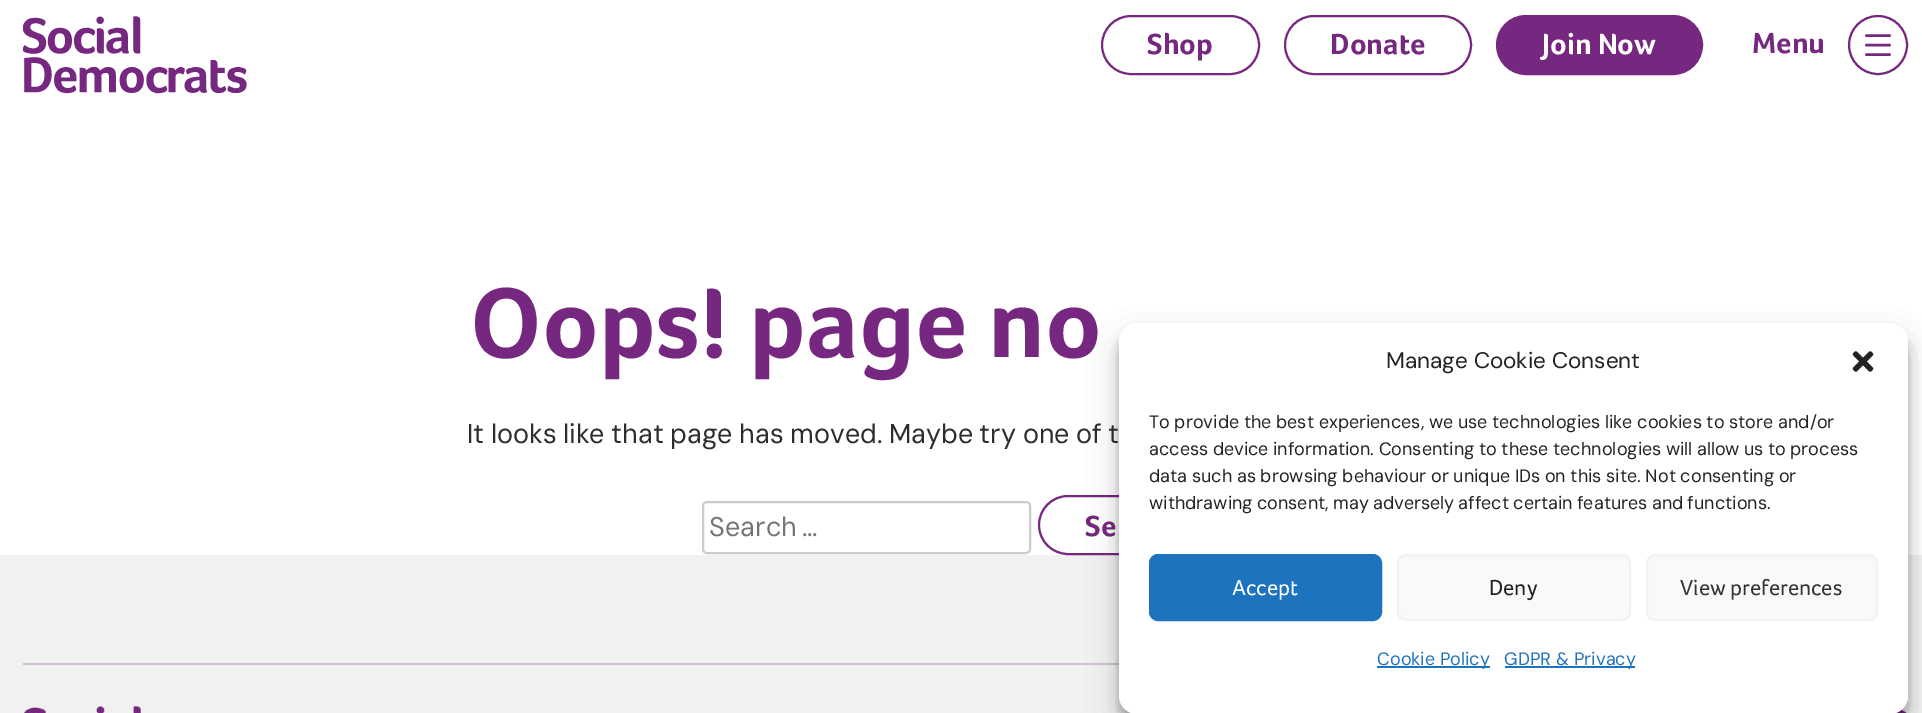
%!PS-Adobe-3.0
%%BoundingBox: 0 0 1922 713
%%LanguageLevel: 3
%%Pages: 1
%%EndComments
%%BeginProlog
/setink { 3 { 255 div 3 1 roll } repeat setrgbcolor } def
/usefont { [ exch dup neg 0 0 3 -1 roll 0 0 ] selectfont } def
/drawtext { setink usefont moveto show } def
/fillbox { setink rectfill } def
/setalpha { dup .setfillconstantalpha .setstrokeconstantalpha } def
/disc { newpath 0 360 arc closepath } def
/rrect { 5 dict begin { /r /h /w /y /x } { exch def } forall
  x r add y moveto x w add y 2 copy h add r arct x w add y h add x 1 index r arct
  x y h add x y r arct x y 2 copy exch w add exch r arct closepath end } def
/softshadow { 12 dict begin { /a /b /q /h /w /y /x } { exch def } forall gsave /was 0 def
  9 -2 -9 { dup b mul 4 div /e exch def 1 sub .425 mul 2.718 exch exp 1 add a .99 .min exch div /now exch def
    1 1 now sub 1 was sub div sub setalpha /was now def
    w h .min e 2 mul add 0 gt { x e sub y e sub w e 2 mul add h e 2 mul add
      q e add b .6 mul add w h .min 2 div e add .min 0 .max rrect fill } if } for grestore end } def
/drawimage { 5 dict begin { /h /w /y /x /name } { exch def } forall
  gsave x y translate w h scale
  w h 8 [w 0 0 h 0 0] name (r) file false 3 colorimage grestore end } def
%%EndProlog
%%BeginSetup
<< /PageSize [1922 713] /PageUsesTransparency true >> setpagedevice
%%EndSetup
%%Page: 1 1
0 .pushpdf14devicefilter
0 713 translate 1 -1 scale
4 setmiterlimit
0 0 1922 713 241 241 241 fillbox
0 0 1922 555 255 255 255 fillbox
(assets/img1.rgb) 23 16 224 78 drawimage
118 39 127 setink
2 setlinewidth
1102 16 157 58 29 rrect stroke
(Shop) 1147 54 /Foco-Bold 30 118 39 127 drawtext
1285 16 186 58 29 rrect stroke
(Donate) 1330 54 /Foco-Bold 30 118 39 127 drawtext
1497 16 205 58 29 rrect gsave fill grestore
stroke
(Join Now) 1542 54 /Foco-Bold 30 255 255 255 drawtext
(Menu) 1752 53 /Foco-Bold 30 118 39 127 drawtext
1878 45 29 disc stroke
2.6 setlinewidth
1 setlinecap
1866.5 35.5 moveto 1889.5 35.5 lineto 1866.5 45 moveto 1889.5 45 lineto 1889.5 54.5 moveto 1866.5 54.5 lineto stroke
(Oops! page no) 470 357 /Foco-Bold 102 118 39 127 drawtext
/DMSans-Regular 27 usefont
45 45 45 setink
467 443 moveto -0.75 0 32 (It looks like that page has moved. Maybe try one of t) widthshow
204 204 204 setink
2 setlinewidth
0 setlinecap
703 502 327 51 4 rrect stroke
117 117 117 setink
709 536 moveto -2 0 32 (Search …) widthshow
118 39 127 setink
1039 496 181 58 29 rrect stroke
(Se) 1085 536 /Foco-Bold 30 118 39 127 drawtext
23 663 1096 2 210 191 213 fillbox
118 39 127 setink
1841 705 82 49 41 rrect fill
0 0 0 setink
1119 332 789 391 18 4.5 0.23 softshadow
1119 338 789 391 18 15 0.19 softshadow
255 255 255 setink
1119 323 789 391 18 rrect fill
(Manage Cookie Consent) 1386 368 /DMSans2-Regular 22.5 34 34 34 drawtext
(assets/img2.rgb) 1852 351 22 21 drawimage
/DMSans-Regular 18 usefont
1149 428 moveto -0.25 0 32 (To provide the best experiences, we use technologies like cookies to store and/or) widthshow
1149 455 moveto -0.5 0 32 (access device information. Consenting to these technologies will allow us to process) widthshow
1149 482 moveto -0.3 0 32 (data such as browsing behaviour or unique IDs on this site. Not consenting or) widthshow
1149 509 moveto -0.75 0 32 (withdrawing consent, may adversely affect certain features and functions.) widthshow
30 115 190 setink
1150 555 231 65 8 rrect gsave fill grestore
stroke
(Accept) 1232 595 /Foco-Regular 22.5 255 255 255 drawtext
249 249 249 setink
1398 555 232 65 8 rrect gsave fill grestore
242 242 242 setink
stroke
(Deny) 1489 595 /Foco-Regular 22.5 34 34 34 drawtext
249 249 249 setink
1647 555 230 65 8 rrect gsave fill grestore
242 242 242 setink
stroke
(View preferences) 1680 595 /Foco-Regular 22.5 51 51 51 drawtext
1377 666 113 2 30 115 190 fillbox
(Cookie Policy) 1377 665 /DMSans-Regular 18 30 115 190 drawtext
1505 666 130 2 30 115 190 fillbox
(GDPR & Privacy) 1504 665 /DMSans-Regular 18 30 115 190 drawtext
(assets/img3.rgb) 24 705 117 8 drawimage
.poppdf14devicefilter showpage
%%EOF
